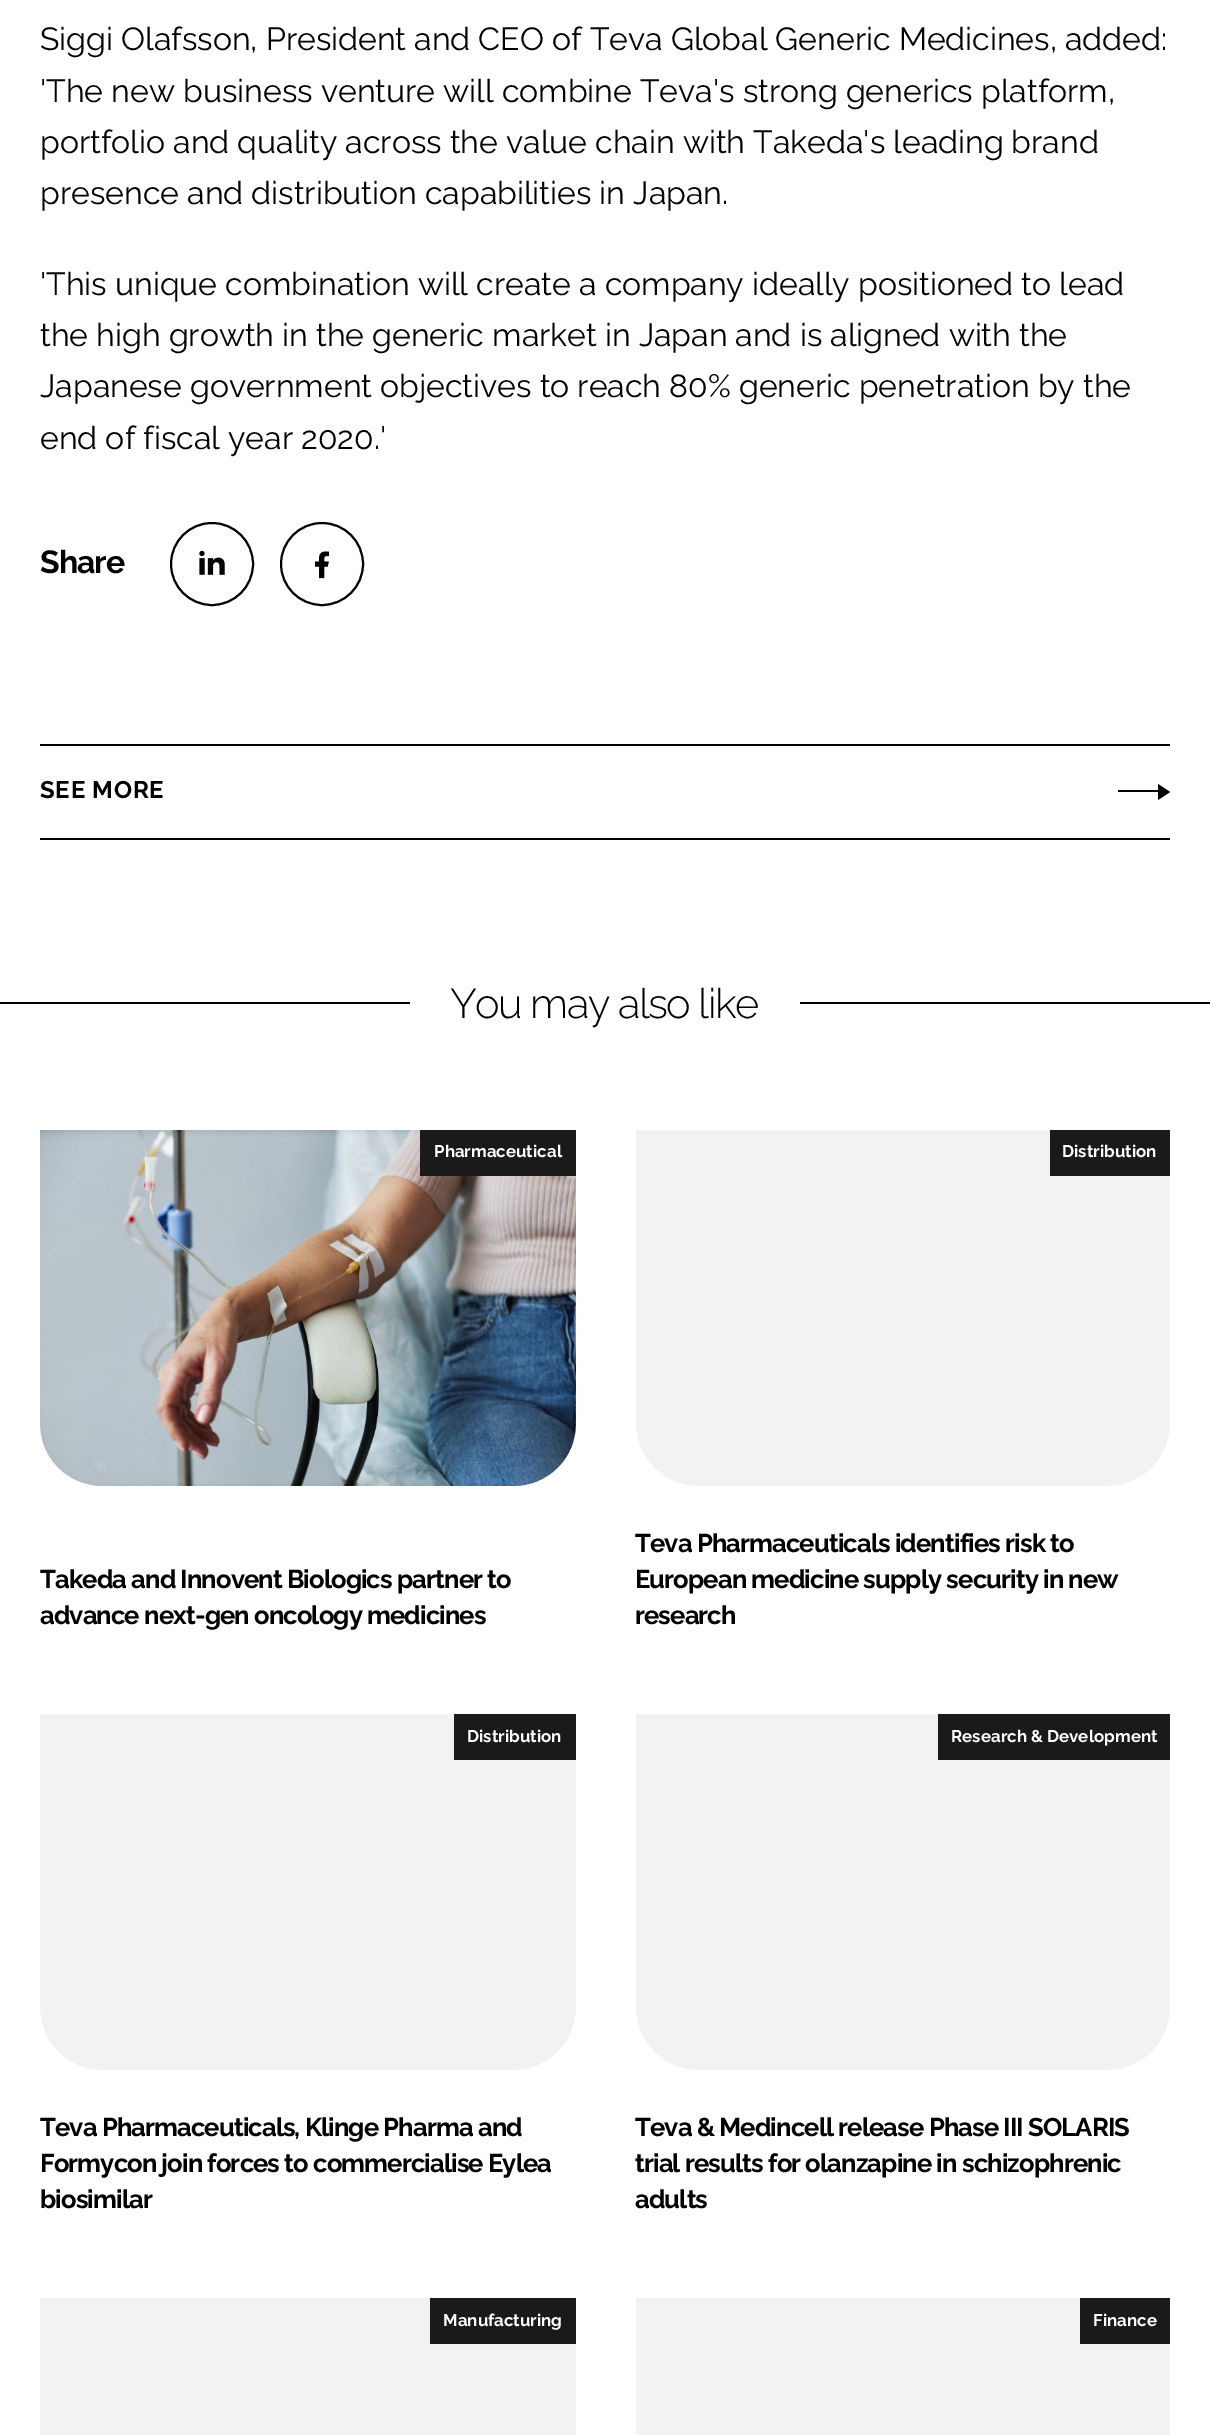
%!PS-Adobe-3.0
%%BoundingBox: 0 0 1210 2435
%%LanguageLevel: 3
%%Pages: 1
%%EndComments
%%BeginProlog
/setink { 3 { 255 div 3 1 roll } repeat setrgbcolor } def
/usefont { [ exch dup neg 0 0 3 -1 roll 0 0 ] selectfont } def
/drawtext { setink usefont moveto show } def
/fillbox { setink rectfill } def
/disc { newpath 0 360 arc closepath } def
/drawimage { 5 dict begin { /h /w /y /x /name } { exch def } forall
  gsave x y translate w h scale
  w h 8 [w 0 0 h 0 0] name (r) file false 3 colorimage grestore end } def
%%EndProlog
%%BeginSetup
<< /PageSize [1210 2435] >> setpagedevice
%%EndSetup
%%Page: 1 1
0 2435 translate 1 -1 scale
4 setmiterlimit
0 0 1210 2435 255 255 255 fillbox
(Siggi Olafsson, President and CEO of Teva Global Generic Medicines, added:) 40 50 /Raleway-Regular 32 0 0 0 drawtext
('The new business venture will combine Teva's strong generics platform,) 40 102 /Raleway-Regular 32 0 0 0 drawtext
(portfolio and quality across the value chain with Takeda's leading brand) 40 153 /Raleway-Regular 32 0 0 0 drawtext
(presence and distribution capabilities in Japan.) 40 204 /Raleway-Regular 32 0 0 0 drawtext
('This unique combination will create a company ideally positioned to lead) 40 295 /Raleway-Regular 32 0 0 0 drawtext
(the high growth in the generic market in Japan and is aligned with the) 40 346 /Raleway-Regular 32 0 0 0 drawtext
(Japanese government objectives to reach 80% generic penetration by the) 40 397 /Raleway-Regular 32 0 0 0 drawtext
(end of fiscal year 2020.') 40 449 /Raleway-Regular 32 0 0 0 drawtext
/Raleway-Bold 32 usefont
40 573 moveto -1 0 (Share) ashow
2 setlinewidth
212 564 41 disc stroke
(assets/img1.rgb) 199 550 26 25 drawimage
322 564 41 disc stroke
(assets/img2.rgb) 315 551 14 28 drawimage
40 744 1130 2 0 0 0 fillbox
40 838 1130 2 0 0 0 fillbox
/Raleway-Bold 24 usefont
40 798 moveto 0.75 0 (SEE MORE) ashow
1118 790 40 2 0 0 0 fillbox
1158 800 moveto 1158 784 lineto 1170 792 lineto closepath fill
0 1002 1210 2 0 0 0 fillbox
410 1002 390 2 255 255 255 fillbox
/Raleway-Light 41.5 usefont
0 0 0 setink
450 1018 moveto -1.5 0 (You may also like) ashow
242 242 242 setink
39 1129 moveto 577 1129 lineto 577 1424 lineto 577 1459 549 1487 514 1487 curveto 102 1487 lineto 67 1487 39 1459 39 1424 curveto closepath gsave fill grestore
255 255 255 setink
stroke
(assets/img3.rgb) 40 1130 536 356 drawimage
420 1130 156 46 26 26 26 fillbox
(Pharmaceutical) 434 1157 /Raleway-Bold 16.9 255 255 255 drawtext
/Raleway-Bold 25.6 usefont
0 0 0 setink
40 1588 moveto -0.9 0 (Takeda and Innovent Biologics partner to) ashow
40 1624 moveto -0.9 0 (advance next-gen oncology medicines) ashow
242 242 242 setink
635 1129 moveto 1171 1129 lineto 1171 1424 lineto 1171 1459 1143 1487 1108 1487 curveto 698 1487 lineto 663 1487 635 1459 635 1424 curveto closepath gsave fill grestore
255 255 255 setink
stroke
1050 1130 120 46 26 26 26 fillbox
(Distribution) 1062 1157 /Raleway-Bold 16.9 255 255 255 drawtext
/Raleway-Bold 25.6 usefont
0 0 0 setink
635 1552 moveto -0.9 0 (Teva Pharmaceuticals identifies risk to) ashow
635 1588 moveto -0.9 0 (European medicine supply security in new) ashow
635 1624 moveto -0.9 0 (research) ashow
242 242 242 setink
39 1713 moveto 577 1713 lineto 577 2008 lineto 577 2043 549 2071 514 2071 curveto 102 2071 lineto 67 2071 39 2043 39 2008 curveto closepath gsave fill grestore
255 255 255 setink
stroke
454 1714 122 46 26 26 26 fillbox
(Distribution) 467 1742 /Raleway-Bold 16.9 255 255 255 drawtext
/Raleway-Bold 25.6 usefont
0 0 0 setink
40 2136 moveto -0.9 0 (Teva Pharmaceuticals, Klinge Pharma and) ashow
40 2172 moveto -0.9 0 (Formycon join forces to commercialise Eylea) ashow
40 2208 moveto -0.9 0 (biosimilar) ashow
242 242 242 setink
635 1713 moveto 1171 1713 lineto 1171 2008 lineto 1171 2043 1143 2071 1108 2071 curveto 698 2071 lineto 663 2071 635 2043 635 2008 curveto closepath gsave fill grestore
255 255 255 setink
stroke
938 1714 232 46 26 26 26 fillbox
(Research & Development) 951 1742 /Raleway-Bold 16.9 255 255 255 drawtext
/Raleway-Bold 25.6 usefont
0 0 0 setink
635 2136 moveto -0.9 0 (Teva & Medincell release Phase III SOLARIS) ashow
635 2172 moveto -0.9 0 (trial results for olanzapine in schizophrenic) ashow
635 2208 moveto -0.9 0 (adults) ashow
40 2298 536 137 242 242 242 fillbox
430 2298 146 46 26 26 26 fillbox
(Manufacturing) 443 2326 /Raleway-Bold 16.9 255 255 255 drawtext
636 2298 534 137 242 242 242 fillbox
1080 2298 90 46 26 26 26 fillbox
(Finance) 1093 2326 /Raleway-Bold 16.9 255 255 255 drawtext
showpage
%%EOF
